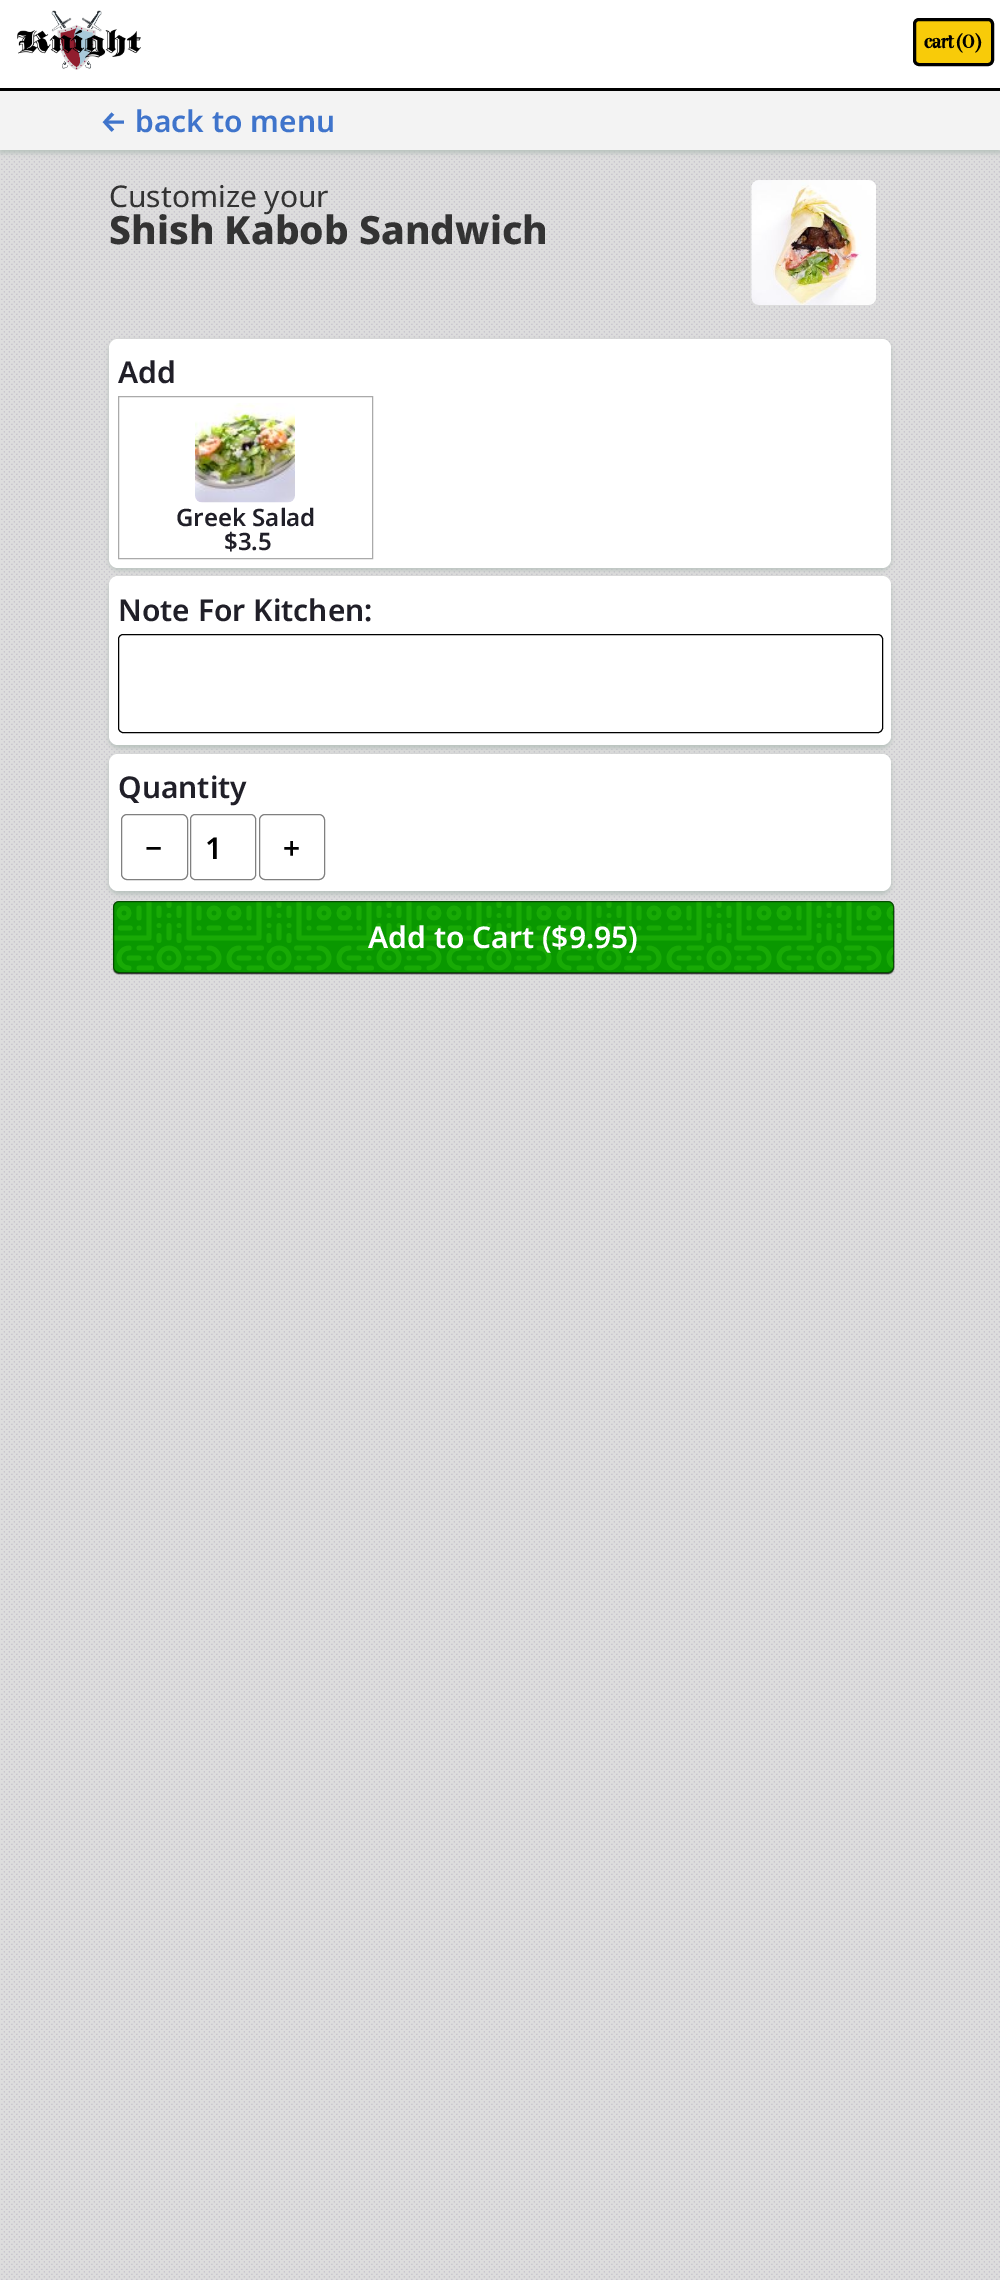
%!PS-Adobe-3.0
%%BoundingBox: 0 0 1000 2280
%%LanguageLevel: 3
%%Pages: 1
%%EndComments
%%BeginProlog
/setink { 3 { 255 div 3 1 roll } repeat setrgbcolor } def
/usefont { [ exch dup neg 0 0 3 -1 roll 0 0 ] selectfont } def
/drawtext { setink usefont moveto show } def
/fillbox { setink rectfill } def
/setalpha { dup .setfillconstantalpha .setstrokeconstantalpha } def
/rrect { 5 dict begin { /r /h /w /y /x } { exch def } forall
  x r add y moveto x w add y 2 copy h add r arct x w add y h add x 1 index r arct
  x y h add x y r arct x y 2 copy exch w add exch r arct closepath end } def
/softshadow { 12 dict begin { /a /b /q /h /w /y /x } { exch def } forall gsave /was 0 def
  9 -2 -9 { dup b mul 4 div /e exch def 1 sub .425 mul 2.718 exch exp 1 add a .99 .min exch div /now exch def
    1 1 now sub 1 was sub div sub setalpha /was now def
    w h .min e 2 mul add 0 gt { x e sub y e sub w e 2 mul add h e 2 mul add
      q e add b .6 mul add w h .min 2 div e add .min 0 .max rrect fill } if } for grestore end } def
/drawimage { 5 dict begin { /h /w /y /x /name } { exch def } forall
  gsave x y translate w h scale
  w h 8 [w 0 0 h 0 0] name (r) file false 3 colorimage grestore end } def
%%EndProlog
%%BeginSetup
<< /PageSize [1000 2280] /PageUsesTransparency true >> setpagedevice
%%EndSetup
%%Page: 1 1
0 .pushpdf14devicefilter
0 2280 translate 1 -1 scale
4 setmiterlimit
0 0 1000 2280 221 221 221 fillbox
(assets/img2.rgb) 1 151 999 2129 drawimage
183 193 188 setink
0 93 1000 60 0 2.5 1 softshadow
0 0 1000 88 255 255 255 fillbox
0 88 1000 3 0 0 0 fillbox
(assets/img1.rgb) 17 10 124 60 drawimage
248 203 9 setink
914.5 19.5 78 45 4.5 rrect gsave fill grestore
0 0 0 setink
3 setlinewidth
stroke
(cart \(0\)) 924 48 /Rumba-Bold 19 0 0 0 drawtext
0 91 1000 59 243 243 243 fillbox
(←) 100 132 /FiraSans-SemiBold 30 63 116 203 drawtext
(back to menu) 135 132 /NotoSans-SemiBold 30 63 116 203 drawtext
(Customize your) 109 207 /NotoSans-Regular 30 51 51 51 drawtext
(Shish Kabob Sandwich) 109 244 /NotoSans-ExtraBold 39 51 51 51 drawtext
(assets/img3.rgb) 751 180 125 125 drawimage
183 193 188 setink
109 341 782 229 9 2.5 1 softshadow
255 255 255 setink
109 339 782 229 9 rrect fill
(Add) 118 383 /NotoSans-SemiBold 30 32 31 40 drawtext
170 170 170 setink
1 setlinewidth
118.5 396.5 254 162 rectstroke
(assets/img4.rgb) 195 403 100 100 drawimage
(Greek Salad) 176 526 /NotoSans-SemiBold 24 32 31 40 drawtext
($3.5) 224 550 /NotoSans-SemiBold 24 32 31 40 drawtext
183 193 188 setink
109 579 782 169 9 2.5 1 softshadow
255 255 255 setink
109 576 782 169 9 rrect fill
(Note For Kitchen:) 118 621 /NotoSans-SemiBold 30 32 31 40 drawtext
0 0 0 setink
118.5 634.5 764 98 4.5 rrect stroke
183 193 188 setink
109 756 782 138 9 2.5 1 softshadow
255 255 255 setink
109 754 782 137 9 rrect fill
(Quantity) 118 798 /NotoSans-SemiBold 30 32 31 40 drawtext
128 128 128 setink
121.5 814.5 66 65 5.5 rrect stroke
(−) 145 859 /NotoSans-SemiBold 30 0 0 0 drawtext
128 128 128 setink
190.5 814.5 65 65 4.5 rrect stroke
(1) 205 859 /NotoSans-SemiBold 30 0 0 0 drawtext
128 128 128 setink
259.5 814.5 65 65 5.5 rrect stroke
(+) 283 859 /NotoSans-SemiBold 30 0 0 0 drawtext
113 903 781 71 6 0.5 0.8 softshadow
9 152 0 setink
113 901 781 72 6 rrect fill
(assets/img5.rgb) 112 901 782 70 drawimage
0.5 setalpha
0 0 0 setink
113.5 901.5 780 71 5.5 rrect stroke
1 setalpha
(Add to Cart \($9.95\)) 368 948 /NotoSans-SemiBold 30 255 255 255 drawtext
.poppdf14devicefilter showpage
%%EOF
